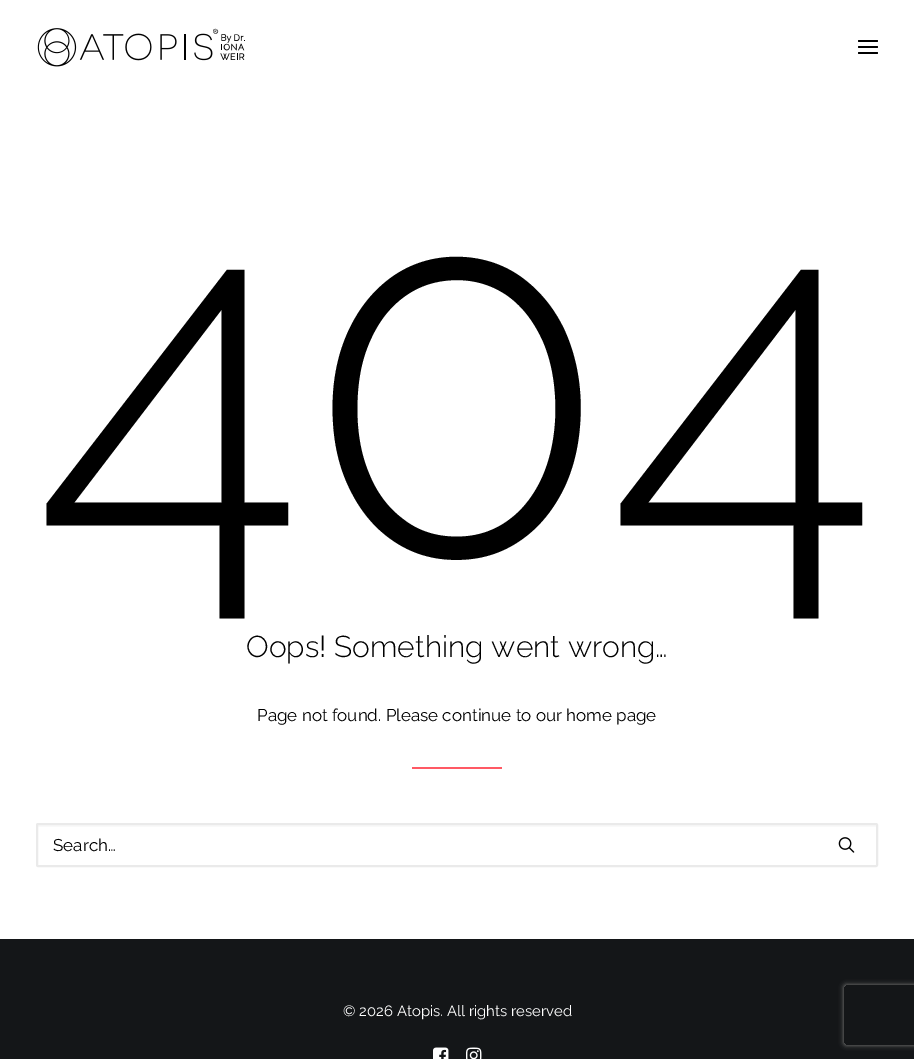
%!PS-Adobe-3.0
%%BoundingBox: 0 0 914 1059
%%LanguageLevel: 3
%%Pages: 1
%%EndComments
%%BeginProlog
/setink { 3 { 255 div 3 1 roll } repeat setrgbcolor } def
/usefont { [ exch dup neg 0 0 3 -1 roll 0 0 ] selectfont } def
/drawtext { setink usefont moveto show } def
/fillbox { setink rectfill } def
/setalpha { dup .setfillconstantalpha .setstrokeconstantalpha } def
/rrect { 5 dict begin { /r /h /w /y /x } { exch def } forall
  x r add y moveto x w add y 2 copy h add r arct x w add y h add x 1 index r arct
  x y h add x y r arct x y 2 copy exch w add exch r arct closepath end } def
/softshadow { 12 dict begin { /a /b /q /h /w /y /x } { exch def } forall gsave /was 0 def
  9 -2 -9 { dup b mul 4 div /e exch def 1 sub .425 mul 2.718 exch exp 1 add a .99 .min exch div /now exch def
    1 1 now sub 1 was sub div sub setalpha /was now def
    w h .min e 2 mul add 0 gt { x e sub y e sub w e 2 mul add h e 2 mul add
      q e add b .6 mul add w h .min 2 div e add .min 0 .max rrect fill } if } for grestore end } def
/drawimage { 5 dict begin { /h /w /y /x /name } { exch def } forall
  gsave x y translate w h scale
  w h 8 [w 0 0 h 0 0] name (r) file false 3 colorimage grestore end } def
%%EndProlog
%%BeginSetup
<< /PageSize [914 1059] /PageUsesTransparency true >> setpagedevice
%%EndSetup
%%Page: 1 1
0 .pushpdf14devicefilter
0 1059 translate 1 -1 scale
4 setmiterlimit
0 0 914 1059 255 255 255 fillbox
(assets/img1.rgb) 37 28 208 39 drawimage
0 0 0 setink
858 46 20 2 1 rrect fill
858 40 20 2 1 rrect fill
858 52 20 2 1 rrect fill
(404) 36 555 /Raleway-Light 500 0 0 0 drawtext
(Oops! Something went wrong…) 246 657 /Raleway-Light 30 0 0 0 drawtext
(Page not found. Please continue to our home page) 257 721 /Raleway-Regular 17 0 0 0 drawtext
412 767 90 2 255 89 100 fillbox
38 825 838 2 249 249 249 fillbox
234 234 234 setink
2 setlinewidth
37 824 840 42 1 rrect stroke
(Search…) 53 851 /Raleway-Regular 17 0 0 0 drawtext
(assets/img2.rgb) 838 837 17 16 drawimage
0 939 914 120 20 22 24 fillbox
(© 2026 Atopis. All rights reserved) 343 1016 /Raleway-Regular 14.9 255 255 255 drawtext
(assets/img3.rgb) 433 1047 16 12 drawimage
(assets/img4.rgb) 466 1047 16 12 drawimage
gsave
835 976 moveto 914 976 lineto 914 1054 lineto 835 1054 lineto closepath 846 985 moveto 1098 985 lineto 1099 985 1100 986 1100 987 curveto 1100 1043 lineto 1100 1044 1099 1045 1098 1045 curveto 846 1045 lineto 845 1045 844 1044 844 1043 curveto 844 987 lineto 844 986 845 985 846 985 curveto closepath eoclip newpath
128 128 128 setink
844 985 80 60 2 2.5 1 softshadow
grestore
.poppdf14devicefilter showpage
%%EOF
